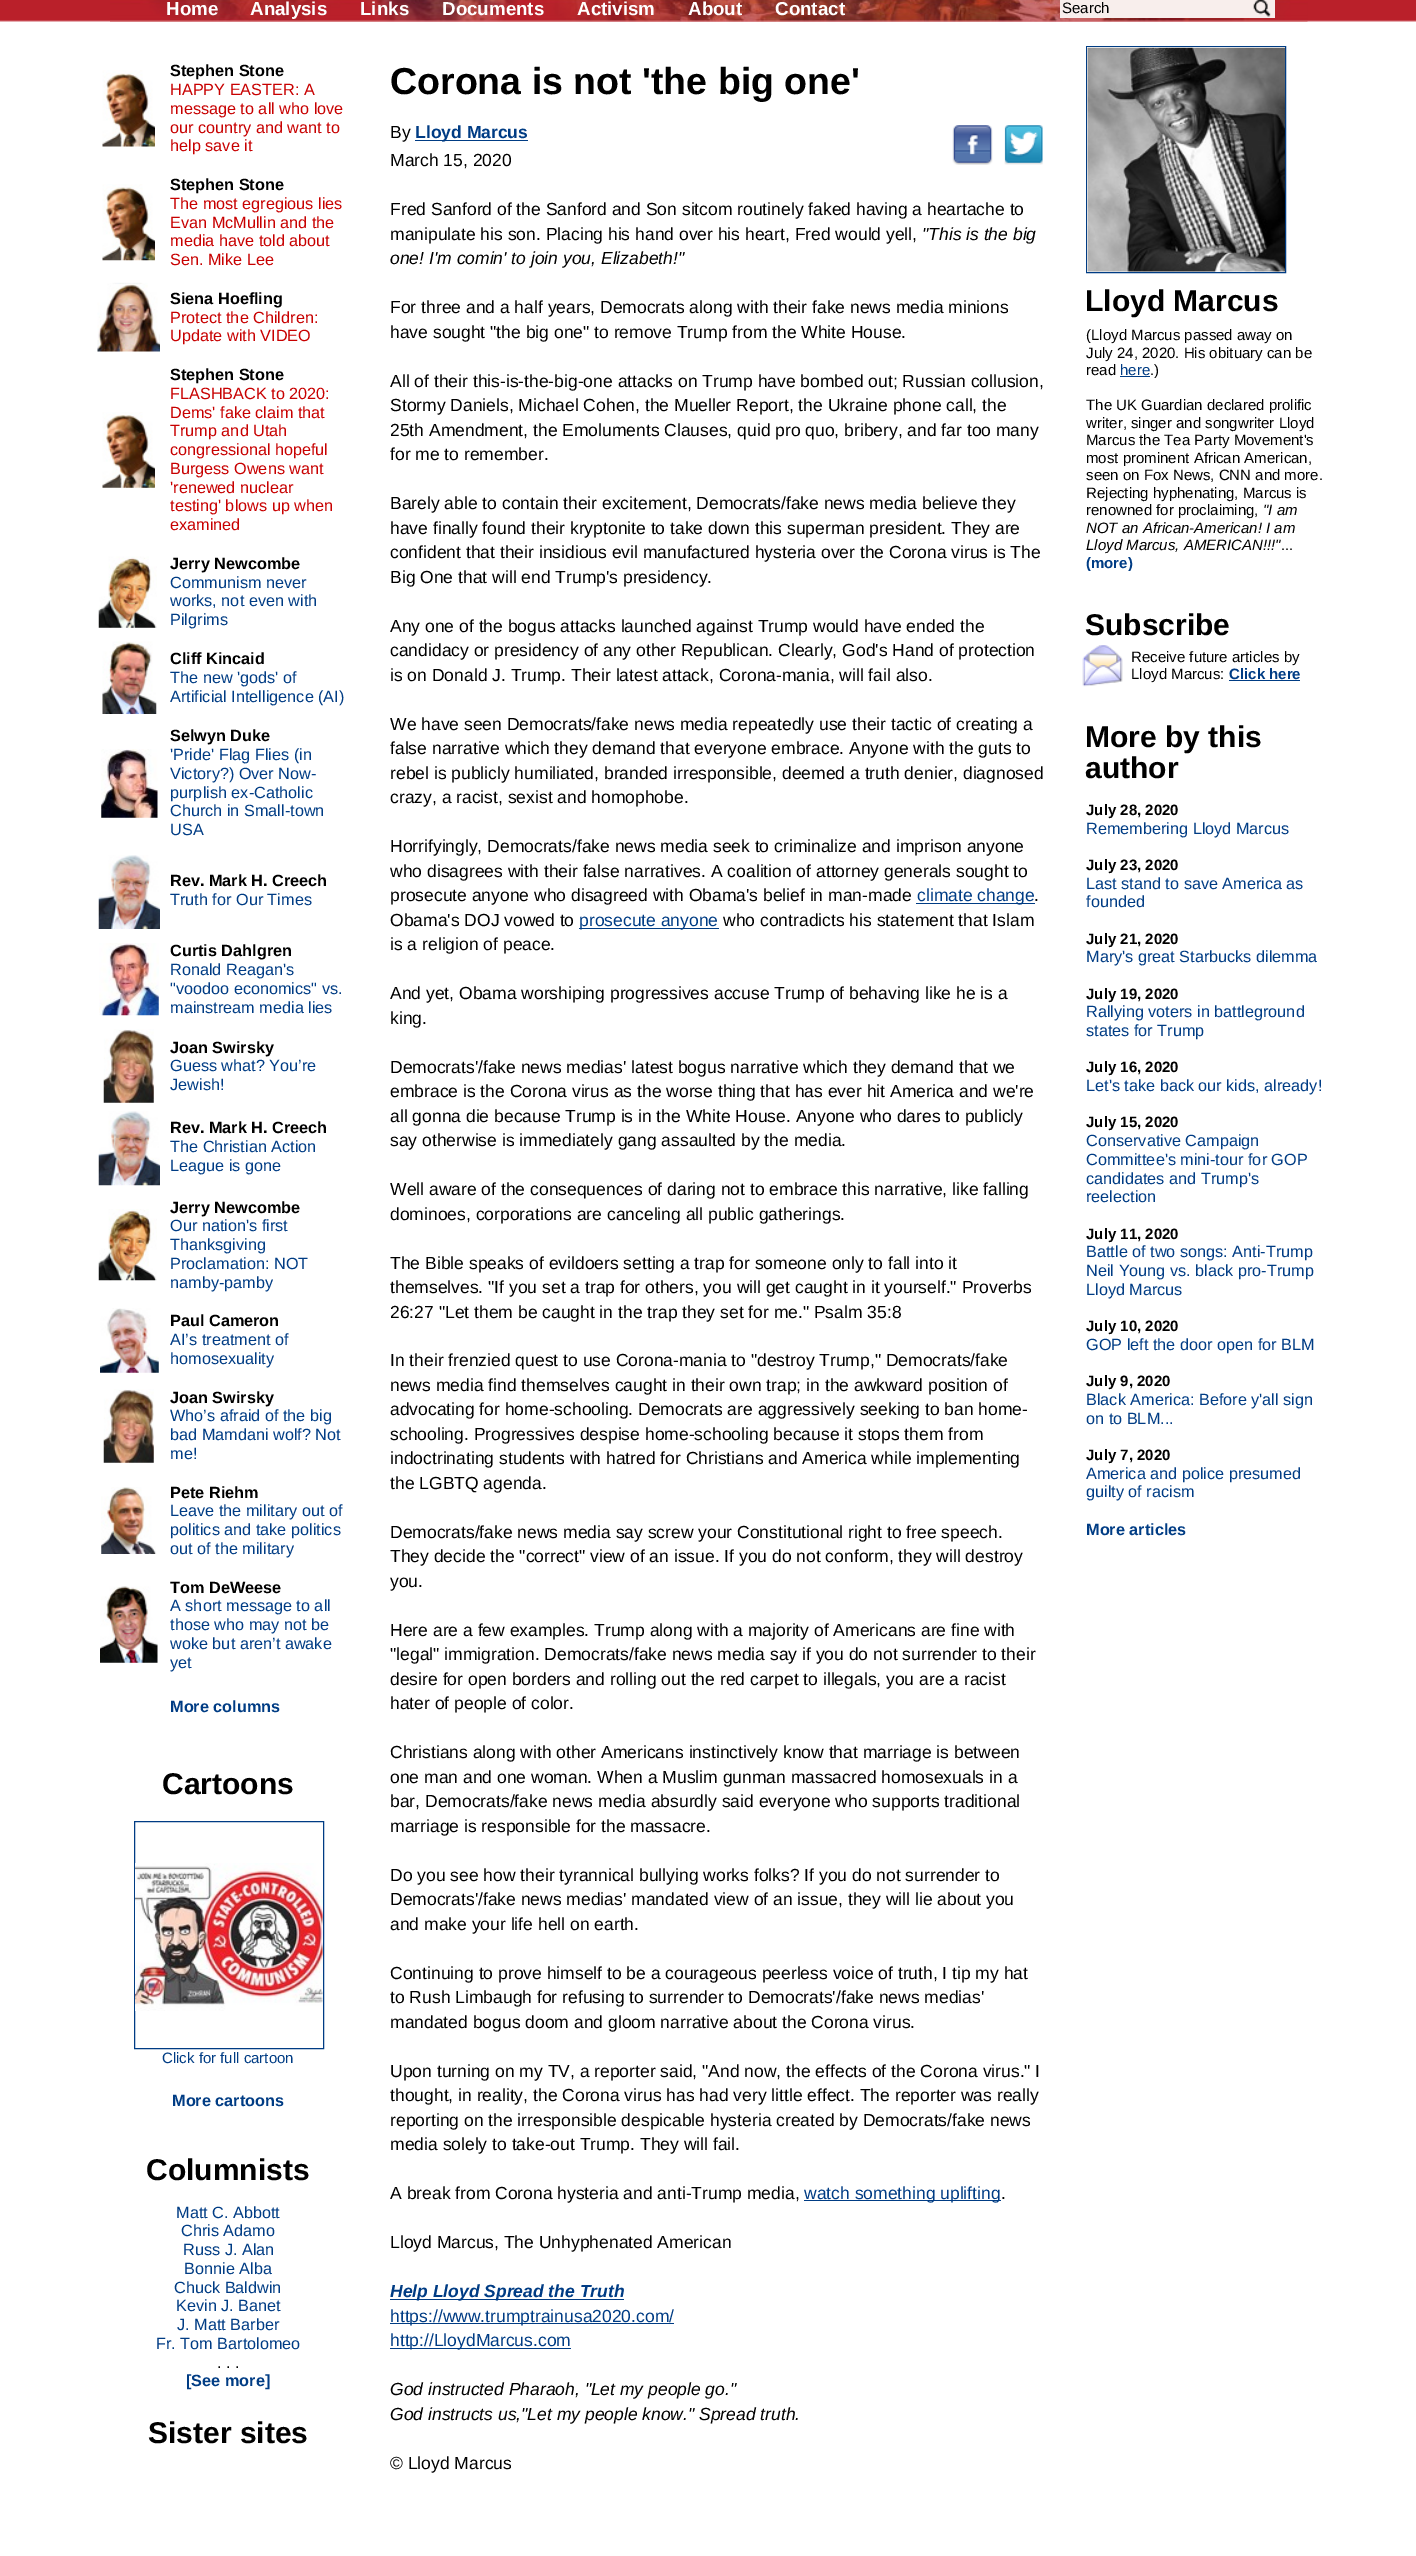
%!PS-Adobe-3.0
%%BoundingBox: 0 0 1416 2556
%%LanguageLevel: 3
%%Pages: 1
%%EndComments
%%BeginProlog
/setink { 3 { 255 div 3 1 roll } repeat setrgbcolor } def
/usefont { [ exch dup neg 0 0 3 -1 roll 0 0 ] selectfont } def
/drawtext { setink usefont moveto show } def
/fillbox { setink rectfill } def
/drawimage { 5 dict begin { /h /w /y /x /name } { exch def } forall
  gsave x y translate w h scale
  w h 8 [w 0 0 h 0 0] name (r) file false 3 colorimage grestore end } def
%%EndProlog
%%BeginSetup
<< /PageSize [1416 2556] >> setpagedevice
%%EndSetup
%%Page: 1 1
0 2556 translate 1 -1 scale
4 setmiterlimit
0 0 1416 2556 255 255 255 fillbox
(assets/img1.rgb) 0 0 1416 22 drawimage
(assets/img2.rgb) 110 0 1198 22 drawimage
(Home) 166 15 /LiberationSans-Bold 18.75 255 255 255 drawtext
(Analysis) 250 15 /LiberationSans-Bold 18.75 255 255 255 drawtext
(Links) 360 15 /LiberationSans-Bold 18.75 255 255 255 drawtext
(Documents) 442 15 /LiberationSans-Bold 18.75 255 255 255 drawtext
(Activism) 577 15 /LiberationSans-Bold 18.75 255 255 255 drawtext
(About) 688 15 /LiberationSans-Bold 18.75 255 255 255 drawtext
(Contact) 775 15 /LiberationSans-Bold 18.75 255 255 255 drawtext
1060 0 215 18 248 238 236 fillbox
(Search) 1062 13 /LiberationSans-Regular 15 0 0 0 drawtext
(assets/img3.rgb) 1253 0 18 17 drawimage
(assets/img4.rgb) 102 70 53 77 drawimage
(Stephen Stone) 170 76 /LiberationSans-Bold 16.25 0 0 0 drawtext
(HAPPY EASTER: A) 170 95 /LiberationSans-Regular 16.25 200 0 0 drawtext
(message to all who love) 170 114 /LiberationSans-Regular 16.25 200 0 0 drawtext
(our country and want to) 170 133 /LiberationSans-Regular 16.25 200 0 0 drawtext
(help save it) 170 151 /LiberationSans-Regular 16.25 200 0 0 drawtext
(assets/img5.rgb) 102 184 53 77 drawimage
(Stephen Stone) 170 190 /LiberationSans-Bold 16.25 0 0 0 drawtext
(The most egregious lies) 170 209 /LiberationSans-Regular 16.25 200 0 0 drawtext
(Evan McMullin and the) 170 228 /LiberationSans-Regular 16.25 200 0 0 drawtext
(media have told about) 170 246 /LiberationSans-Regular 16.25 200 0 0 drawtext
(Sen. Mike Lee) 170 265 /LiberationSans-Regular 16.25 200 0 0 drawtext
(assets/img6.rgb) 97 282 63 70 drawimage
(Siena Hoefling) 170 304 /LiberationSans-Bold 16.25 0 0 0 drawtext
(Protect the Children:) 170 323 /LiberationSans-Regular 16.25 200 0 0 drawtext
(Update with VIDEO) 170 341 /LiberationSans-Regular 16.25 200 0 0 drawtext
(assets/img7.rgb) 102 412 53 76 drawimage
(Stephen Stone) 170 380 /LiberationSans-Bold 16.25 0 0 0 drawtext
(FLASHBACK to 2020:) 170 399 /LiberationSans-Regular 16.25 200 0 0 drawtext
(Dems' fake claim that) 170 418 /LiberationSans-Regular 16.25 200 0 0 drawtext
(Trump and Utah) 170 436 /LiberationSans-Regular 16.25 200 0 0 drawtext
(congressional hopeful) 170 455 /LiberationSans-Regular 16.25 200 0 0 drawtext
(Burgess Owens want) 170 474 /LiberationSans-Regular 16.25 200 0 0 drawtext
('renewed nuclear) 170 493 /LiberationSans-Regular 16.25 200 0 0 drawtext
(testing' blows up when) 170 511 /LiberationSans-Regular 16.25 200 0 0 drawtext
(examined) 170 530 /LiberationSans-Regular 16.25 200 0 0 drawtext
(assets/img8.rgb) 98 556 59 72 drawimage
(Jerry Newcombe) 170 569 /LiberationSans-Bold 16.25 0 0 0 drawtext
(Communism never) 170 588 /LiberationSans-Regular 16.25 0 60 132 drawtext
(works, not even with) 170 606 /LiberationSans-Regular 16.25 0 60 132 drawtext
(Pilgrims) 170 625 /LiberationSans-Regular 16.25 0 60 132 drawtext
(assets/img9.rgb) 102 641 55 73 drawimage
(Cliff Kincaid) 170 664 /LiberationSans-Bold 16.25 0 0 0 drawtext
(The new 'gods' of) 170 683 /LiberationSans-Regular 16.25 0 60 132 drawtext
(Artificial Intelligence \(AI\)) 170 702 /LiberationSans-Regular 16.25 0 60 132 drawtext
(assets/img10.rgb) 101 749 57 69 drawimage
(Selwyn Duke) 170 741 /LiberationSans-Bold 16.25 0 0 0 drawtext
('Pride' Flag Flies \(in) 170 760 /LiberationSans-Regular 16.25 0 60 132 drawtext
(Victory?\) Over Now-) 170 779 /LiberationSans-Regular 16.25 0 60 132 drawtext
(purplish ex-Catholic) 170 798 /LiberationSans-Regular 16.25 0 60 132 drawtext
(Church in Small-town) 170 816 /LiberationSans-Regular 16.25 0 60 132 drawtext
(USA) 170 835 /LiberationSans-Regular 16.25 0 60 132 drawtext
(assets/img11.rgb) 98 855 62 74 drawimage
(Rev. Mark H. Creech) 170 886 /LiberationSans-Bold 16.25 0 0 0 drawtext
(Truth for Our Times) 170 905 /LiberationSans-Regular 16.25 0 60 132 drawtext
(assets/img12.rgb) 99 943 60 73 drawimage
(Curtis Dahlgren) 170 956 /LiberationSans-Bold 16.25 0 0 0 drawtext
(Ronald Reagan's) 170 975 /LiberationSans-Regular 16.25 0 60 132 drawtext
("voodoo economics" vs.) 170 994 /LiberationSans-Regular 16.25 0 60 132 drawtext
(mainstream media lies) 170 1013 /LiberationSans-Regular 16.25 0 60 132 drawtext
(assets/img13.rgb) 103 1029 51 74 drawimage
(Joan Swirsky) 170 1053 /LiberationSans-Bold 16.25 0 0 0 drawtext
(Guess what? You’re) 170 1071 /LiberationSans-Regular 16.25 0 60 132 drawtext
(Jewish!) 170 1090 /LiberationSans-Regular 16.25 0 60 132 drawtext
(assets/img14.rgb) 98 1111 62 75 drawimage
(Rev. Mark H. Creech) 170 1133 /LiberationSans-Bold 16.25 0 0 0 drawtext
(The Christian Action) 170 1152 /LiberationSans-Regular 16.25 0 60 132 drawtext
(League is gone) 170 1171 /LiberationSans-Regular 16.25 0 60 132 drawtext
(assets/img15.rgb) 98 1209 59 72 drawimage
(Jerry Newcombe) 170 1213 /LiberationSans-Bold 16.25 0 0 0 drawtext
(Our nation's first) 170 1231 /LiberationSans-Regular 16.25 0 60 132 drawtext
(Thanksgiving) 170 1250 /LiberationSans-Regular 16.25 0 60 132 drawtext
(Proclamation: NOT) 170 1269 /LiberationSans-Regular 16.25 0 60 132 drawtext
(namby-pamby) 170 1288 /LiberationSans-Regular 16.25 0 60 132 drawtext
(assets/img16.rgb) 100 1308 59 65 drawimage
(Paul Cameron) 170 1326 /LiberationSans-Bold 16.25 0 0 0 drawtext
(AI’s treatment of) 170 1345 /LiberationSans-Regular 16.25 0 60 132 drawtext
(homosexuality) 170 1364 /LiberationSans-Regular 16.25 0 60 132 drawtext
(assets/img17.rgb) 103 1389 51 74 drawimage
(Joan Swirsky) 170 1403 /LiberationSans-Bold 16.25 0 0 0 drawtext
(Who’s afraid of the big) 170 1421 /LiberationSans-Regular 16.25 0 60 132 drawtext
(bad Mamdani wolf? Not) 170 1440 /LiberationSans-Regular 16.25 0 60 132 drawtext
(me!) 170 1459 /LiberationSans-Regular 16.25 0 60 132 drawtext
(assets/img18.rgb) 101 1487 56 67 drawimage
(Pete Riehm) 170 1498 /LiberationSans-Bold 16.25 0 0 0 drawtext
(Leave the military out of) 170 1516 /LiberationSans-Regular 16.25 0 60 132 drawtext
(politics and take politics) 170 1535 /LiberationSans-Regular 16.25 0 60 132 drawtext
(out of the military) 170 1554 /LiberationSans-Regular 16.25 0 60 132 drawtext
(assets/img19.rgb) 100 1586 58 77 drawimage
(Tom DeWeese) 170 1593 /LiberationSans-Bold 16.25 0 0 0 drawtext
(A short message to all) 170 1611 /LiberationSans-Regular 16.25 0 60 132 drawtext
(those who may not be) 170 1630 /LiberationSans-Regular 16.25 0 60 132 drawtext
(woke but aren’t awake) 170 1649 /LiberationSans-Regular 16.25 0 60 132 drawtext
(yet) 170 1668 /LiberationSans-Regular 16.25 0 60 132 drawtext
(More columns) 170 1712 /LiberationSans-Bold 16.25 0 60 132 drawtext
(Cartoons) 162 1794 /LiberationSans-Bold 30 0 0 0 drawtext
0 60 132 setink
134.5 1821.5 189 227 rectstroke
(assets/img20.rgb) 135 1863 188 148 drawimage
(Click for full cartoon) 162 2063 /LiberationSans-Regular 15 0 60 132 drawtext
(More cartoons) 172 2106 /LiberationSans-Bold 16.25 0 60 132 drawtext
(Columnists) 146 2180 /LiberationSans-Bold 30 0 0 0 drawtext
(Matt C. Abbott) 176 2218 /LiberationSans-Regular 16.25 0 60 132 drawtext
(Chris Adamo) 181 2236 /LiberationSans-Regular 16.25 0 60 132 drawtext
(Russ J. Alan) 183 2255 /LiberationSans-Regular 16.25 0 60 132 drawtext
(Bonnie Alba) 184 2274 /LiberationSans-Regular 16.25 0 60 132 drawtext
(Chuck Baldwin) 174 2293 /LiberationSans-Regular 16.25 0 60 132 drawtext
(Kevin J. Banet) 176 2311 /LiberationSans-Regular 16.25 0 60 132 drawtext
(J. Matt Barber) 177 2330 /LiberationSans-Regular 16.25 0 60 132 drawtext
(Fr. Tom Bartolomeo) 156 2349 /LiberationSans-Regular 16.25 0 60 132 drawtext
(. . .) 217 2368 /LiberationSans-Regular 16.25 0 0 0 drawtext
([See more]) 186 2386 /LiberationSans-Bold 16.25 0 60 132 drawtext
(Sister sites) 148 2443 /LiberationSans-Bold 30 0 0 0 drawtext
(Corona is not 'the big one') 390 94 /LiberationSans-Bold 37.5 0 0 0 drawtext
(By) 390 138 /LiberationSans-Regular 17.5 0 0 0 drawtext
415 140 113 1 0 60 132 fillbox
(Lloyd Marcus) 415 138 /LiberationSans-Bold 17.5 0 60 132 drawtext
(March 15, 2020) 390 166 /LiberationSans-Regular 17.5 0 0 0 drawtext
(Fred Sanford of the Sanford and Son sitcom routinely faked having a heartache to) 390 215 /LiberationSans-Regular 17.5 0 0 0 drawtext
(manipulate his son. Placing his hand over his heart, Fred would yell,) 390 240 /LiberationSans-Regular 17.5 0 0 0 drawtext
("This is the big) 922 240 /LiberationSans-Italic 17.5 0 0 0 drawtext
(one! I'm comin' to join you, Elizabeth!") 390 264 /LiberationSans-Italic 17.5 0 0 0 drawtext
(For three and a half years, Democrats along with their fake news media minions) 390 313 /LiberationSans-Regular 17.5 0 0 0 drawtext
(have sought "the big one" to remove Trump from the White House.) 390 338 /LiberationSans-Regular 17.5 0 0 0 drawtext
(All of their this-is-the-big-one attacks on Trump have bombed out; Russian collusion,) 390 387 /LiberationSans-Regular 17.5 0 0 0 drawtext
(Stormy Daniels, Michael Cohen, the Mueller Report, the Ukraine phone call, the) 390 411 /LiberationSans-Regular 17.5 0 0 0 drawtext
(25th Amendment, the Emoluments Clauses, quid pro quo, bribery, and far too many) 390 436 /LiberationSans-Regular 17.5 0 0 0 drawtext
(for me to remember.) 390 460 /LiberationSans-Regular 17.5 0 0 0 drawtext
(Barely able to contain their excitement, Democrats/fake news media believe they) 390 509 /LiberationSans-Regular 17.5 0 0 0 drawtext
(have finally found their kryptonite to take down this superman president. They are) 390 534 /LiberationSans-Regular 17.5 0 0 0 drawtext
(confident that their insidious evil manufactured hysteria over the Corona virus is The) 390 558 /LiberationSans-Regular 17.5 0 0 0 drawtext
(Big One that will end Trump's presidency.) 390 583 /LiberationSans-Regular 17.5 0 0 0 drawtext
(Any one of the bogus attacks launched against Trump would have ended the) 390 632 /LiberationSans-Regular 17.5 0 0 0 drawtext
(candidacy or presidency of any other Republican. Clearly, God's Hand of protection) 390 656 /LiberationSans-Regular 17.5 0 0 0 drawtext
(is on Donald J. Trump. Their latest attack, Corona-mania, will fail also.) 390 681 /LiberationSans-Regular 17.5 0 0 0 drawtext
(We have seen Democrats/fake news media repeatedly use their tactic of creating a) 390 730 /LiberationSans-Regular 17.5 0 0 0 drawtext
(false narrative which they demand that everyone embrace. Anyone with the guts to) 390 754 /LiberationSans-Regular 17.5 0 0 0 drawtext
(rebel is publicly humiliated, branded irresponsible, deemed a truth denier, diagnosed) 390 779 /LiberationSans-Regular 17.5 0 0 0 drawtext
(crazy, a racist, sexist and homophobe.) 390 803 /LiberationSans-Regular 17.5 0 0 0 drawtext
(Horrifyingly, Democrats/fake news media seek to criminalize and imprison anyone) 390 852 /LiberationSans-Regular 17.5 0 0 0 drawtext
(who disagrees with their false narratives. A coalition of attorney generals sought to) 390 877 /LiberationSans-Regular 17.5 0 0 0 drawtext
(prosecute anyone who disagreed with Obama's belief in man-made) 390 901 /LiberationSans-Regular 17.5 0 0 0 drawtext
916 903 119 1 0 60 132 fillbox
(climate change) 917 901 /LiberationSans-Regular 17.5 0 60 132 drawtext
(.) 1034 901 /LiberationSans-Regular 17.5 0 0 0 drawtext
(Obama's DOJ vowed to) 390 926 /LiberationSans-Regular 17.5 0 0 0 drawtext
579 928 140 1 0 60 132 fillbox
(prosecute anyone) 579 926 /LiberationSans-Regular 17.5 0 60 132 drawtext
(who contradicts his statement that Islam) 723 926 /LiberationSans-Regular 17.5 0 0 0 drawtext
(is a religion of peace.) 390 950 /LiberationSans-Regular 17.5 0 0 0 drawtext
(And yet, Obama worshiping progressives accuse Trump of behaving like he is a) 390 999 /LiberationSans-Regular 17.5 0 0 0 drawtext
(king.) 390 1024 /LiberationSans-Regular 17.5 0 0 0 drawtext
(Democrats'/fake news medias' latest bogus narrative which they demand that we) 390 1073 /LiberationSans-Regular 17.5 0 0 0 drawtext
(embrace is the Corona virus as the worse thing that has ever hit America and we're) 390 1097 /LiberationSans-Regular 17.5 0 0 0 drawtext
(all gonna die because Trump is in the White House. Anyone who dares to publicly) 390 1122 /LiberationSans-Regular 17.5 0 0 0 drawtext
(say otherwise is immediately gang assaulted by the media.) 390 1146 /LiberationSans-Regular 17.5 0 0 0 drawtext
(Well aware of the consequences of daring not to embrace this narrative, like falling) 390 1195 /LiberationSans-Regular 17.5 0 0 0 drawtext
(dominoes, corporations are canceling all public gatherings.) 390 1220 /LiberationSans-Regular 17.5 0 0 0 drawtext
(The Bible speaks of evildoers setting a trap for someone only to fall into it) 390 1269 /LiberationSans-Regular 17.5 0 0 0 drawtext
(themselves. "If you set a trap for others, you will get caught in it yourself." Proverbs) 390 1293 /LiberationSans-Regular 17.5 0 0 0 drawtext
(26:27 "Let them be caught in the trap they set for me." Psalm 35:8) 390 1318 /LiberationSans-Regular 17.5 0 0 0 drawtext
(In their frenzied quest to use Corona-mania to "destroy Trump," Democrats/fake) 390 1366 /LiberationSans-Regular 17.5 0 0 0 drawtext
(news media find themselves caught in their own trap; in the awkward position of) 390 1391 /LiberationSans-Regular 17.5 0 0 0 drawtext
(advocating for home-schooling. Democrats are aggressively seeking to ban home-) 390 1415 /LiberationSans-Regular 17.5 0 0 0 drawtext
(schooling. Progressives despise home-schooling because it stops them from) 390 1440 /LiberationSans-Regular 17.5 0 0 0 drawtext
(indoctrinating students with hatred for Christians and America while implementing) 390 1464 /LiberationSans-Regular 17.5 0 0 0 drawtext
(the LGBTQ agenda.) 390 1489 /LiberationSans-Regular 17.5 0 0 0 drawtext
(Democrats/fake news media say screw your Constitutional right to free speech.) 390 1538 /LiberationSans-Regular 17.5 0 0 0 drawtext
(They decide the "correct" view of an issue. If you do not conform, they will destroy) 390 1562 /LiberationSans-Regular 17.5 0 0 0 drawtext
(you.) 390 1587 /LiberationSans-Regular 17.5 0 0 0 drawtext
(Here are a few examples. Trump along with a majority of Americans are fine with) 390 1636 /LiberationSans-Regular 17.5 0 0 0 drawtext
("legal" immigration. Democrats/fake news media say if you do not surrender to their) 390 1660 /LiberationSans-Regular 17.5 0 0 0 drawtext
(desire for open borders and rolling out the red carpet to illegals, you are a racist) 390 1685 /LiberationSans-Regular 17.5 0 0 0 drawtext
(hater of people of color.) 390 1709 /LiberationSans-Regular 17.5 0 0 0 drawtext
(Christians along with other Americans instinctively know that marriage is between) 390 1758 /LiberationSans-Regular 17.5 0 0 0 drawtext
(one man and one woman. When a Muslim gunman massacred homosexuals in a) 390 1783 /LiberationSans-Regular 17.5 0 0 0 drawtext
(bar, Democrats/fake news media absurdly said everyone who supports traditional) 390 1807 /LiberationSans-Regular 17.5 0 0 0 drawtext
(marriage is responsible for the massacre.) 390 1832 /LiberationSans-Regular 17.5 0 0 0 drawtext
(Do you see how their tyrannical bullying works folks? If you do not surrender to) 390 1881 /LiberationSans-Regular 17.5 0 0 0 drawtext
(Democrats'/fake news medias' mandated view of an issue, they will lie about you) 390 1905 /LiberationSans-Regular 17.5 0 0 0 drawtext
(and make your life hell on earth.) 390 1930 /LiberationSans-Regular 17.5 0 0 0 drawtext
(Continuing to prove himself to be a courageous peerless voice of truth, I tip my hat) 390 1979 /LiberationSans-Regular 17.5 0 0 0 drawtext
(to Rush Limbaugh for refusing to surrender to Democrats'/fake news medias') 390 2003 /LiberationSans-Regular 17.5 0 0 0 drawtext
(mandated bogus doom and gloom narrative about the Corona virus.) 390 2028 /LiberationSans-Regular 17.5 0 0 0 drawtext
(Upon turning on my TV, a reporter said, "And now, the effects of the Corona virus." I) 390 2077 /LiberationSans-Regular 17.5 0 0 0 drawtext
(thought, in reality, the Corona virus has had very little effect. The reporter was really) 390 2101 /LiberationSans-Regular 17.5 0 0 0 drawtext
(reporting on the irresponsible despicable hysteria created by Democrats/fake news) 390 2126 /LiberationSans-Regular 17.5 0 0 0 drawtext
(media solely to take-out Trump. They will fail.) 390 2150 /LiberationSans-Regular 17.5 0 0 0 drawtext
(A break from Corona hysteria and anti-Trump media,) 390 2199 /LiberationSans-Regular 17.5 0 0 0 drawtext
804 2200 197 1 0 60 132 fillbox
(watch something uplifting) 804 2199 /LiberationSans-Regular 17.5 0 60 132 drawtext
(.) 1001 2199 /LiberationSans-Regular 17.5 0 0 0 drawtext
(Lloyd Marcus, The Unhyphenated American) 390 2248 /LiberationSans-Regular 17.5 0 0 0 drawtext
390 2299 234 1 0 60 132 fillbox
(Help Lloyd Spread the Truth) 390 2297 /LiberationSans-BoldItalic 17.5 0 60 132 drawtext
390 2323 284 1 0 60 132 fillbox
(https://www.trumptrainusa2020.com/) 390 2322 /LiberationSans-Regular 17.5 0 60 132 drawtext
390 2348 181 1 0 60 132 fillbox
(http://LloydMarcus.com) 390 2346 /LiberationSans-Regular 17.5 0 60 132 drawtext
(God instructed Pharaoh, "Let my people go.") 390 2395 /LiberationSans-Italic 17.5 0 0 0 drawtext
(God instructs us,"Let my people know." Spread truth.) 390 2420 /LiberationSans-Italic 17.5 0 0 0 drawtext
(© Lloyd Marcus) 390 2469 /LiberationSans-Regular 17.5 0 0 0 drawtext
(assets/img21.rgb) 952 125 41 40 drawimage
(assets/img22.rgb) 1004 125 39 40 drawimage
0 60 132 setink
1086.5 46.5 199 226 rectstroke
(assets/img23.rgb) 1087 47 198 225 drawimage
(Lloyd Marcus) 1085 311 /LiberationSans-Bold 30 0 0 0 drawtext
(\(Lloyd Marcus passed away on) 1086 340 /LiberationSans-Regular 15 0 0 0 drawtext
(July 24, 2020. His obituary can be) 1086 358 /LiberationSans-Regular 15 0 0 0 drawtext
(read) 1086 375 /LiberationSans-Regular 15 0 0 0 drawtext
(here) 1120 375 /LiberationSans-Regular 15 0 60 132 drawtext
1120 376 30 1 0 60 132 fillbox
(.\)) 1150 375 /LiberationSans-Regular 15 0 0 0 drawtext
(The UK Guardian declared prolific) 1086 410 /LiberationSans-Regular 15 0 0 0 drawtext
(writer, singer and songwriter Lloyd) 1086 428 /LiberationSans-Regular 15 0 0 0 drawtext
(Marcus the Tea Party Movement's) 1086 445 /LiberationSans-Regular 15 0 0 0 drawtext
(most prominent African American,) 1086 463 /LiberationSans-Regular 15 0 0 0 drawtext
(seen on Fox News, CNN and more.) 1086 480 /LiberationSans-Regular 15 0 0 0 drawtext
(Rejecting hyphenating, Marcus is) 1086 498 /LiberationSans-Regular 15 0 0 0 drawtext
(renowned for proclaiming,) 1086 515 /LiberationSans-Regular 15 0 0 0 drawtext
("I am) 1263 515 /LiberationSans-Italic 15 0 0 0 drawtext
(NOT an African-American! I am) 1086 533 /LiberationSans-Italic 15 0 0 0 drawtext
(Lloyd Marcus, AMERICAN!!!") 1086 550 /LiberationSans-Italic 15 0 0 0 drawtext
(...) 1281 550 /LiberationSans-Regular 15 0 0 0 drawtext
(\(more\)) 1086 568 /LiberationSans-Bold 15 0 60 132 drawtext
(Subscribe) 1085 635 /LiberationSans-Bold 30 0 0 0 drawtext
(assets/img24.rgb) 1082 645 41 42 drawimage
(Receive future articles by) 1131 662 /LiberationSans-Regular 15 0 0 0 drawtext
(Lloyd Marcus:) 1131 679 /LiberationSans-Regular 15 0 0 0 drawtext
(Click here) 1229 679 /LiberationSans-Bold 15 0 60 132 drawtext
1229 680 71 1 0 60 132 fillbox
(More by this) 1085 747 /LiberationSans-Bold 30 0 0 0 drawtext
(author) 1085 778 /LiberationSans-Bold 30 0 0 0 drawtext
(July 28, 2020) 1086 815 /LiberationSans-Bold 15 0 0 0 drawtext
(Remembering Lloyd Marcus) 1086 834 /LiberationSans-Regular 16.25 0 60 132 drawtext
(July 23, 2020) 1086 870 /LiberationSans-Bold 15 0 0 0 drawtext
(Last stand to save America as) 1086 889 /LiberationSans-Regular 16.25 0 60 132 drawtext
(founded) 1086 907 /LiberationSans-Regular 16.25 0 60 132 drawtext
(July 21, 2020) 1086 944 /LiberationSans-Bold 15 0 0 0 drawtext
(Mary's great Starbucks dilemma) 1086 962 /LiberationSans-Regular 16.25 0 60 132 drawtext
(July 19, 2020) 1086 999 /LiberationSans-Bold 15 0 0 0 drawtext
(Rallying voters in battleground) 1086 1017 /LiberationSans-Regular 16.25 0 60 132 drawtext
(states for Trump) 1086 1036 /LiberationSans-Regular 16.25 0 60 132 drawtext
(July 16, 2020) 1086 1072 /LiberationSans-Bold 15 0 0 0 drawtext
(Let's take back our kids, already!) 1086 1091 /LiberationSans-Regular 16.25 0 60 132 drawtext
(July 15, 2020) 1086 1127 /LiberationSans-Bold 15 0 0 0 drawtext
(Conservative Campaign) 1086 1146 /LiberationSans-Regular 16.25 0 60 132 drawtext
(Committee's mini-tour for GOP) 1086 1165 /LiberationSans-Regular 16.25 0 60 132 drawtext
(candidates and Trump's) 1086 1184 /LiberationSans-Regular 16.25 0 60 132 drawtext
(reelection) 1086 1202 /LiberationSans-Regular 16.25 0 60 132 drawtext
(July 11, 2020) 1086 1239 /LiberationSans-Bold 15 0 0 0 drawtext
(Battle of two songs: Anti-Trump) 1086 1257 /LiberationSans-Regular 16.25 0 60 132 drawtext
(Neil Young vs. black pro-Trump) 1086 1276 /LiberationSans-Regular 16.25 0 60 132 drawtext
(Lloyd Marcus) 1086 1295 /LiberationSans-Regular 16.25 0 60 132 drawtext
(July 10, 2020) 1086 1331 /LiberationSans-Bold 15 0 0 0 drawtext
(GOP left the door open for BLM) 1086 1350 /LiberationSans-Regular 16.25 0 60 132 drawtext
(July 9, 2020) 1086 1386 /LiberationSans-Bold 15 0 0 0 drawtext
(Black America: Before y'all sign) 1086 1405 /LiberationSans-Regular 16.25 0 60 132 drawtext
(on to BLM...) 1086 1424 /LiberationSans-Regular 16.25 0 60 132 drawtext
(July 7, 2020) 1086 1460 /LiberationSans-Bold 15 0 0 0 drawtext
(America and police presumed) 1086 1479 /LiberationSans-Regular 16.25 0 60 132 drawtext
(guilty of racism) 1086 1497 /LiberationSans-Regular 16.25 0 60 132 drawtext
(More articles) 1086 1535 /LiberationSans-Bold 16.25 0 60 132 drawtext
showpage
%%EOF
